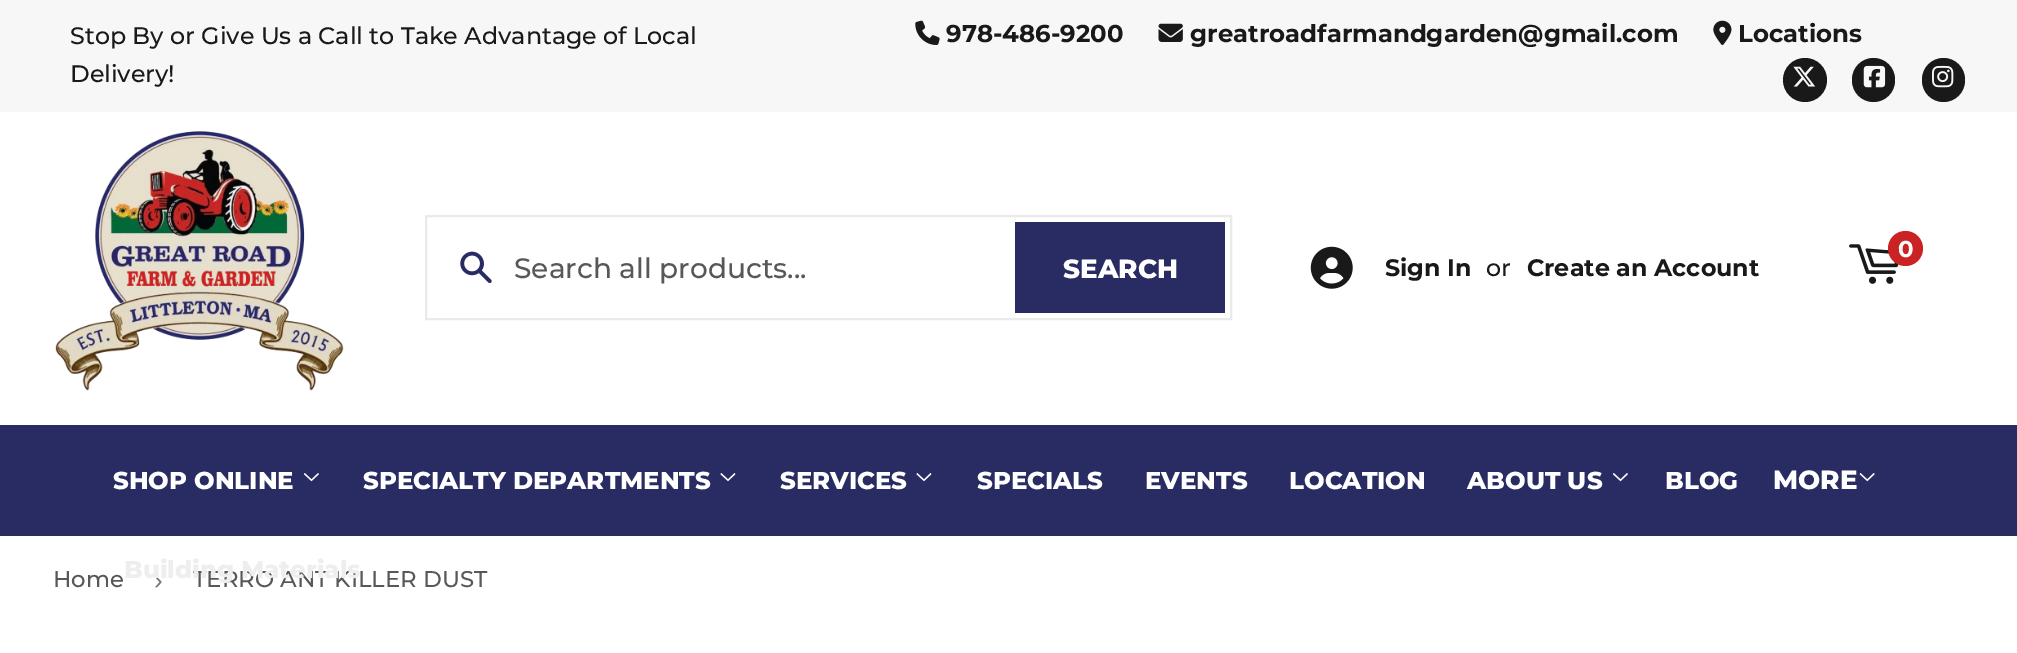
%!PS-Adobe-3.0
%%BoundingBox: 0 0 2017 653
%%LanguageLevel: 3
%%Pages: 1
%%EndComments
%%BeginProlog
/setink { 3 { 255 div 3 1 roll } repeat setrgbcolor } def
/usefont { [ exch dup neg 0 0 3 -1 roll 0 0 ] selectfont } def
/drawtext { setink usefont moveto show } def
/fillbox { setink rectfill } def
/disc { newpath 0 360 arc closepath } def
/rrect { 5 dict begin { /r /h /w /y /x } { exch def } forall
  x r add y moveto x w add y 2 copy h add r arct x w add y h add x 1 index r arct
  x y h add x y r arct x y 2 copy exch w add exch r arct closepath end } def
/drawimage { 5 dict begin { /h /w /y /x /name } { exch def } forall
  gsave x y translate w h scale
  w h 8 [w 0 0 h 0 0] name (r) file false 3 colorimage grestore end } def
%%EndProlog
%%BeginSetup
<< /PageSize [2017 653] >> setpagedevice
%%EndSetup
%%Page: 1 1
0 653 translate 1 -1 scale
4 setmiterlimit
0 0 2017 653 255 255 255 fillbox
0 0 2017 112 247 247 247 fillbox
(Stop By or Give Us a Call to Take Advantage of Local) 70 44 /Montserrat-Medium 23.8 25 25 25 drawtext
(Delivery!) 70 82 /Montserrat-Medium 23.8 25 25 25 drawtext
(assets/img1.rgb) 915 20 25 25 drawimage
(978-486-9200) 946 42 /Montserrat-Bold 24.4 25 25 25 drawtext
(assets/img2.rgb) 1158 23 25 19 drawimage
(greatroadfarmandgarden@gmail.com) 1190 42 /Montserrat-Bold 24.4 25 25 25 drawtext
(assets/img3.rgb) 1713 20 19 25 drawimage
(Locations) 1738 42 /Montserrat-Bold 24.4 25 25 25 drawtext
1805 80 22 disc fill
(assets/img4.rgb) 1793 66 23 21 drawimage
1852 58 43 44 21.5 rrect fill
(assets/img5.rgb) 1863 65 23 23 drawimage
1922 58 43 44 21.5 rrect fill
(assets/img6.rgb) 1932 65 22 23 drawimage
(assets/img7.rgb) 55 131 289 260 drawimage
234 234 234 setink
2 setlinewidth
426 216 805 103 rectstroke
(assets/img8.rgb) 460 251 32 32 drawimage
(Search all products...) 514 278 /Montserrat-Medium 28 88 88 88 drawtext
1015 222 210 91 41 44 99 fillbox
(SEARCH) 1063 278 /Montserrat-ExtraBold 26.25 255 255 255 drawtext
(assets/img9.rgb) 1849 244 50 40 drawimage
203 35 35 setink
1905.5 248.5 17.5 disc fill
(0) 1898 257 /Montserrat-Bold 23 255 255 255 drawtext
(assets/img10.rgb) 1310 246 43 43 drawimage
(Sign In) 1385 276 /Montserrat-Bold 23.8 25 25 25 drawtext
(or) 1486 276 /Montserrat-Medium 23.8 25 25 25 drawtext
(Create an Account) 1527 276 /Montserrat-Bold 23.8 25 25 25 drawtext
0 425 2017 111 41 44 99 fillbox
(SHOP ONLINE) 113 489 /Montserrat-ExtraBold 24.4 255 255 255 drawtext
(assets/img11.rgb) 304 473 15 9 drawimage
(›) 154 589 /LiberationSans-Regular 26.25 118 118 118 drawtext
(TERRO ANT KILLER DUST) 193 587 /Montserrat-Medium 22.75 88 88 88 drawtext
(Building Materials) 124 578 /Montserrat-ExtraBold 24.4 238 238 238 drawtext
(SPECIALTY DEPARTMENTS) 363 489 /Montserrat-ExtraBold 24.4 255 255 255 drawtext
(assets/img12.rgb) 720 473 16 9 drawimage
(SERVICES) 780 489 /Montserrat-ExtraBold 24.4 255 255 255 drawtext
(assets/img12.rgb) 916 473 16 9 drawimage
(SPECIALS) 977 489 /Montserrat-ExtraBold 24.4 255 255 255 drawtext
(EVENTS) 1145 489 /Montserrat-ExtraBold 24.4 255 255 255 drawtext
(LOCATION) 1289 489 /Montserrat-ExtraBold 24.4 255 255 255 drawtext
(ABOUT US) 1467 489 /Montserrat-ExtraBold 24.4 255 255 255 drawtext
(assets/img11.rgb) 1613 473 15 9 drawimage
(BLOG) 1665 489 /Montserrat-ExtraBold 24.4 255 255 255 drawtext
(MORE) 1773 489 /Montserrat-ExtraBold 26.25 255 255 255 drawtext
(assets/img13.rgb) 1859 473 16 9 drawimage
(Home) 53 587 /Montserrat-Medium 22.75 88 88 88 drawtext
showpage
%%EOF
